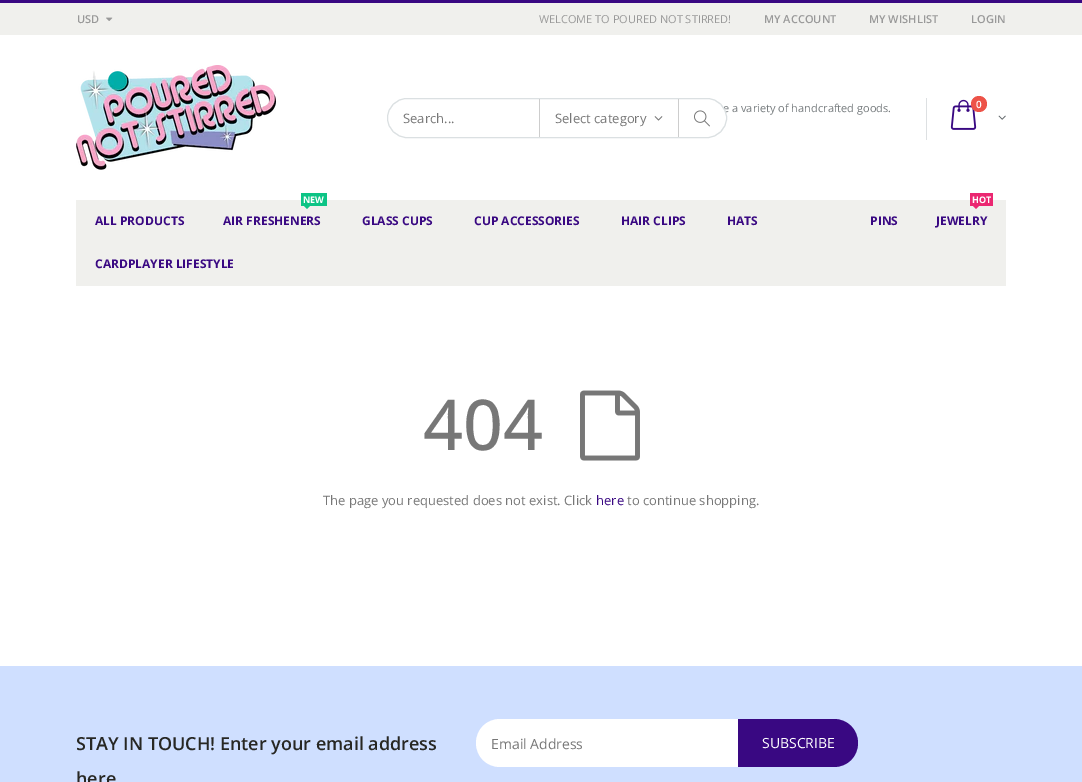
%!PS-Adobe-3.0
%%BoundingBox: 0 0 1082 782
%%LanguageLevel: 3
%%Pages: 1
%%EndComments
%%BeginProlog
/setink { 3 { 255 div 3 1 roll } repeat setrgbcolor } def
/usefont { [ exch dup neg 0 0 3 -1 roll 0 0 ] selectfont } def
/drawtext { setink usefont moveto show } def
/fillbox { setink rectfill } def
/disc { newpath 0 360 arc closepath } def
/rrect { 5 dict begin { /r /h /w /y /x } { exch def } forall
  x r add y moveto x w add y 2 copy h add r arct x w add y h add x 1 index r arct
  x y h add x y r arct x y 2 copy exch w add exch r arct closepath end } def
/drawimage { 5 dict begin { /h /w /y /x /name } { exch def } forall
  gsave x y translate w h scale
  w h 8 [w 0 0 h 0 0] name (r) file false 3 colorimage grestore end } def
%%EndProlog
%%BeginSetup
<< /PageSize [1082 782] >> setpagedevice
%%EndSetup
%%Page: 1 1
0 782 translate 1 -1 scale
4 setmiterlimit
0 0 1082 782 255 255 255 fillbox
0 0 1082 3 57 8 130 fillbox
0 3 1082 32 240 240 237 fillbox
(USD) 77 23 /OpenSans-SemiBold 11 153 153 153 drawtext
(assets/img1.rgb) 106 17 7 4 drawimage
(WELCOME TO POURED NOT STIRRED!) 539 23 /OpenSans-Regular 11 153 153 153 drawtext
(MY ACCOUNT) 764 23 /OpenSans-SemiBold 11 153 153 153 drawtext
(MY WISHLIST) 869 23 /OpenSans-SemiBold 11 153 153 153 drawtext
(LOGIN) 971 23 /OpenSans-SemiBold 11 153 153 153 drawtext
(assets/img2.rgb) 76 65 200 105 drawimage
926 98 1 42 221 224 226 fillbox
(e a variety of handcrafted goods.) 723 112 /OpenSans-Regular 11 120 125 127 drawtext
(assets/img3.rgb) 950 99 27 31 drawimage
237 83 72 setink
979 104 8 disc fill
(0) 976 108 /OpenSans-SemiBold 10 255 255 255 drawtext
(assets/img4.rgb) 998 115 8 5 drawimage
387.5 98.5 339 39 19.5 rrect gsave fill grestore
219 224 226 setink
stroke
(Search...) 403 123 /OpenSans-Regular 13 119 119 119 drawtext
678 99 1 38 205 205 205 fillbox
539 99 1 38 205 205 205 fillbox
(Select category) 555 123 /OpenSans-Regular 13 119 119 119 drawtext
(assets/img5.rgb) 654 116 9 5 drawimage
(assets/img6.rgb) 694 110 16 17 drawimage
76 200 930 86 240 240 237 fillbox
(ALL PRODUCTS) 95 225 /OpenSans-Bold 12 57 8 130 drawtext
301 193 26 13 12 196 133 fillbox
(NEW) 303 203 /OpenSans-Bold 9 255 255 255 drawtext
12 196 133 setink
304 206 moveto 310 206 lineto 307 209 lineto closepath fill
(AIR FRESHENERS) 223 225 /OpenSans-Bold 12 57 8 130 drawtext
(GLASS CUPS) 362 225 /OpenSans-Bold 12 57 8 130 drawtext
(CUP ACCESSORIES) 474 225 /OpenSans-Bold 12 57 8 130 drawtext
(HAIR CLIPS) 621 225 /OpenSans-Bold 12 57 8 130 drawtext
(HATS) 727 225 /OpenSans-Bold 12 57 8 130 drawtext
(PINS) 870 225 /OpenSans-Bold 12 57 8 130 drawtext
970 193 23 13 235 39 113 fillbox
(HOT) 972 203 /OpenSans-Bold 9 255 255 255 drawtext
235 39 113 setink
973 206 moveto 979 206 lineto 976 209 lineto closepath fill
(JEWELRY) 936 225 /OpenSans-Bold 12 57 8 130 drawtext
(CARDPLAYER LIFESTYLE) 95 268 /OpenSans-Bold 12 57 8 130 drawtext
(404) 423 450 /OpenSans-Medium 70 119 119 119 drawtext
(assets/img7.rgb) 580 390 60 71 drawimage
(The page you requested does not exist. Click) 323 505 /OpenSans-Regular 13 119 119 119 drawtext
(here) 596 505 /OpenSans-Regular 13 57 8 130 drawtext
(to continue shopping.) 627 505 /OpenSans-Regular 13 119 119 119 drawtext
0 666 1082 116 207 223 255 fillbox
(STAY IN TOUCH! Enter your email address) 76 750 /OpenSans-SemiBold 18 39 39 35 drawtext
(here) 76 785 /OpenSans-SemiBold 18 39 39 35 drawtext
255 255 255 setink
500 719 moveto 836 719 lineto 836 767 lineto 500 767 lineto 486.5 767 476 756.5 476 743 curveto 476 729.5 486.5 719 500 719 curveto closepath fill
(Email Address) 491 749 /OpenSans-Regular 14 119 119 119 drawtext
57 8 130 setink
738 719 moveto 834 719 lineto 847.5 719 858 729.5 858 743 curveto 858 756.5 847.5 767 834 767 curveto 738 767 lineto closepath fill
(SUBSCRIBE) 762 748 /OpenSans-Regular 14 255 255 255 drawtext
showpage
%%EOF
